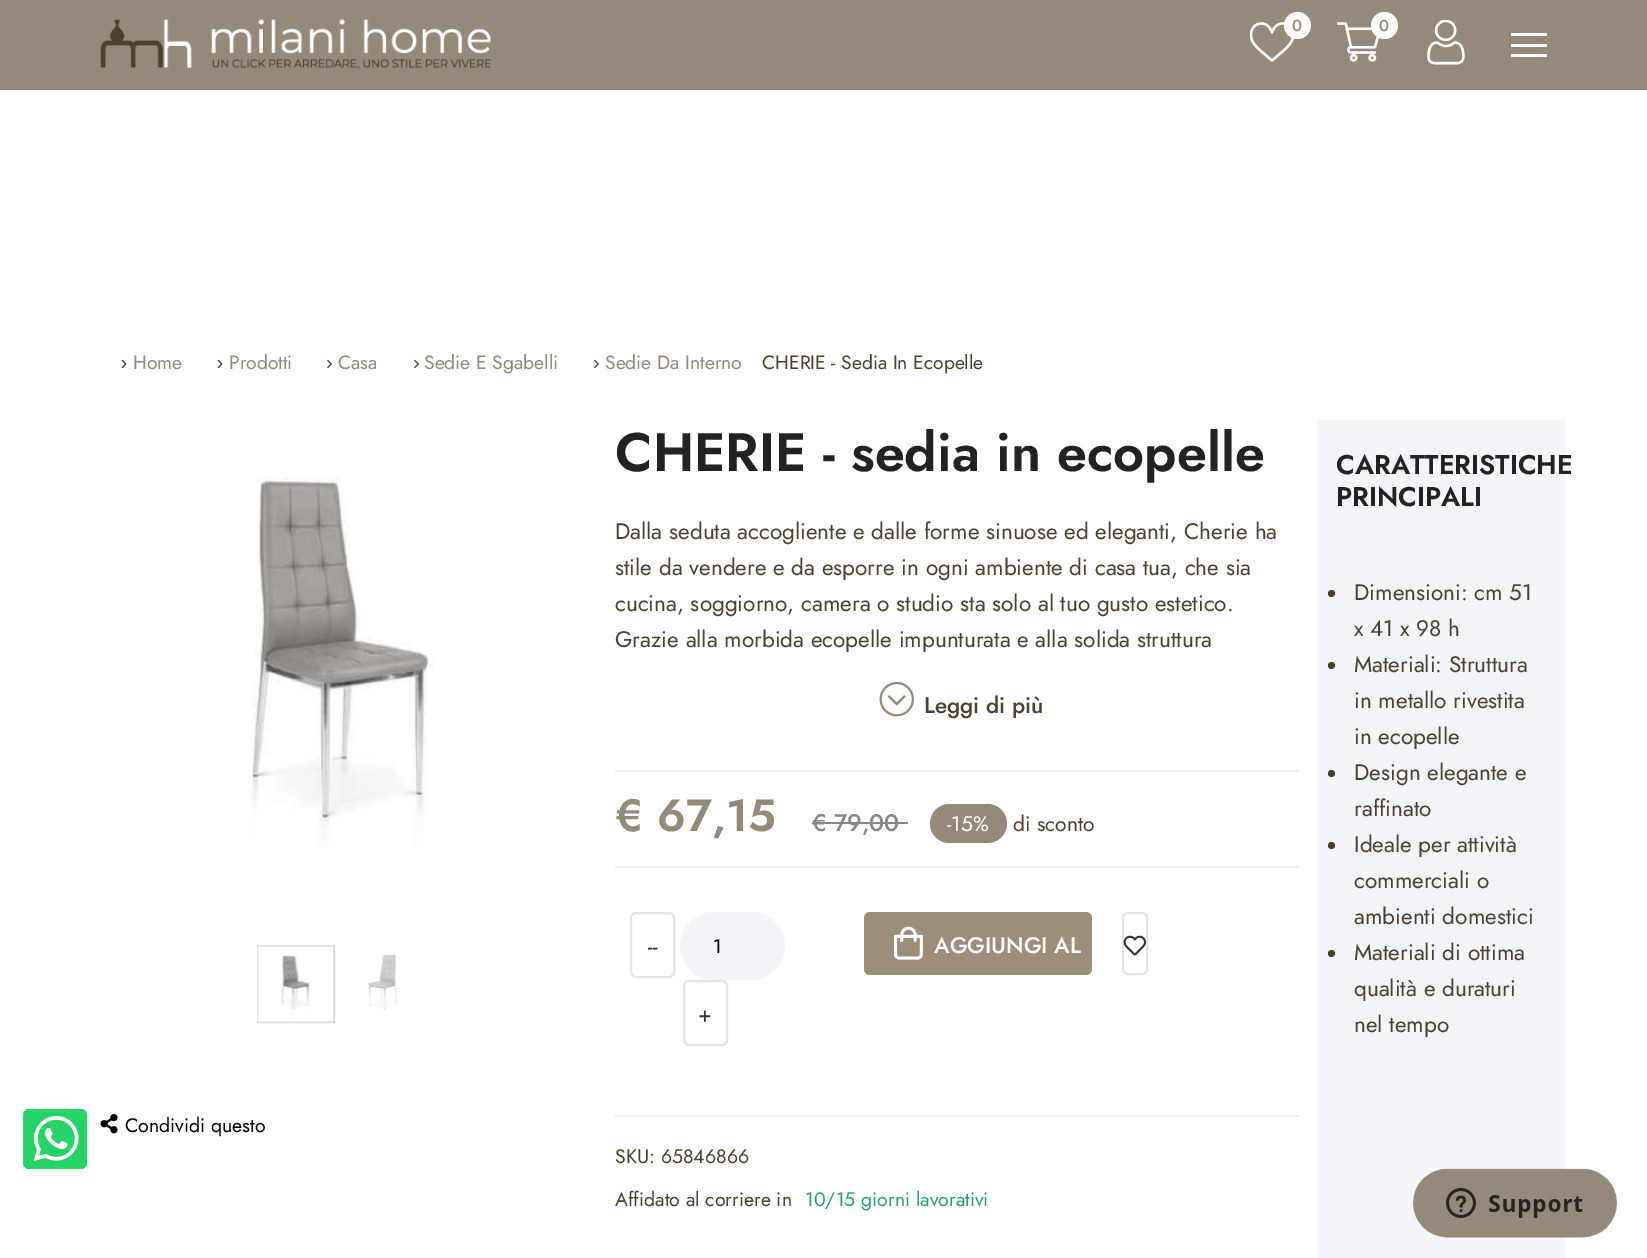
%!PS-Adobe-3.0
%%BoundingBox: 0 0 1647 1258
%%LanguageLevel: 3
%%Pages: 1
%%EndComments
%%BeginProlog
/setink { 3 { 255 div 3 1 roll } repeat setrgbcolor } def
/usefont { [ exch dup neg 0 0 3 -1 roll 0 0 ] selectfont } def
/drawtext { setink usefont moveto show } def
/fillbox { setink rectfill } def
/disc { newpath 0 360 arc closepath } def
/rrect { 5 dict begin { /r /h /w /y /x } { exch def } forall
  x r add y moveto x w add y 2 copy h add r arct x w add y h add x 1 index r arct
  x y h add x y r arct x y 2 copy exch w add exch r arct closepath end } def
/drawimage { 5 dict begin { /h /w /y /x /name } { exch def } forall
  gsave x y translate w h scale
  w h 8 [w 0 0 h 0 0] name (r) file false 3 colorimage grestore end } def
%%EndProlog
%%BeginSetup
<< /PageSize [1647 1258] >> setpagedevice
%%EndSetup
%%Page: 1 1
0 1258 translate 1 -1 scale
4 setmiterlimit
0 0 1647 1258 255 255 255 fillbox
0 0 1647 90 149 137 122 fillbox
(assets/img1.rgb) 100 19 391 50 drawimage
(assets/img2.rgb) 1250 22 45 40 drawimage
255 255 255 setink
1297.5 25.5 13.5 disc fill
(0) 1292 31 /Jost-Medium 16 149 137 122 drawtext
(assets/img3.rgb) 1337 22 43 40 drawimage
255 255 255 setink
1384.5 25.5 13.5 disc fill
(0) 1379 31 /Jost-Medium 16 149 137 122 drawtext
(assets/img4.rgb) 1427 20 38 45 drawimage
1511 33 36 3 255 255 255 fillbox
1511 44 36 3 255 255 255 fillbox
1511 54 36 3 255 255 255 fillbox
37 211 102 setink
23 1109 64 60 6 rrect fill
(assets/img5.rgb) 33 1116 46 45 drawimage
(assets/img6.rgb) 121 359 6 10 drawimage
(Home) 133 369 /Jost-Regular 19.25 149 137 122 drawtext
(assets/img6.rgb) 217 359 6 10 drawimage
(Prodotti) 229 369 /Jost-Regular 19.25 149 137 122 drawtext
(assets/img7.rgb) 327 359 5 10 drawimage
(Casa) 338 369 /Jost-Regular 19.25 149 137 122 drawtext
(assets/img7.rgb) 414 359 5 10 drawimage
(Sedie E Sgabelli) 424 369 /Jost-Regular 19.25 149 137 122 drawtext
(assets/img7.rgb) 594 359 5 10 drawimage
(Sedie Da Interno) 605 369 /Jost-Regular 19.25 149 137 122 drawtext
(CHERIE - Sedia In Ecopelle) 762 369 /Jost-Regular 19.25 77 65 46 drawtext
(assets/img8.rgb) 247 477 187 372 drawimage
220 220 220 setink
2 setlinewidth
258 946 76 76 rectstroke
(assets/img9.rgb) 257 946 77 76 drawimage
(assets/img10.rgb) 368 955 30 55 drawimage
(assets/img11.rgb) 100 1114 18 20 drawimage
(Condividi questo) 125 1132 /Jost-Regular 19.5 0 0 0 drawtext
(CHERIE - sedia in ecopelle) 615 471 /Jost-SemiBold 54 34 34 34 drawtext
(Dalla seduta accogliente e dalle forme sinuose ed eleganti, Cherie ha) 615 539 /Jost-Regular 22.5 77 65 46 drawtext
(stile da vendere e da esporre in ogni ambiente di casa tua, che sia) 615 575 /Jost-Regular 22.5 77 65 46 drawtext
(cucina, soggiorno, camera o studio sta solo al tuo gusto estetico.) 615 611 /Jost-Regular 22.5 77 65 46 drawtext
(Grazie alla morbida ecopelle impunturata e alla solida struttura) 615 647 /Jost-Regular 22.5 77 65 46 drawtext
(assets/img12.rgb) 879 681 35 36 drawimage
(Leggi di più) 924 713 /Jost-Medium 22.5 77 65 46 drawtext
615 770 684 2 238 238 238 fillbox
615 866 684 2 238 238 238 fillbox
(€ 67,15) 615 831 /Jost-SemiBold 45 149 137 122 drawtext
(€ 79,00) 812 831 /Jost-Medium 24 136 136 136 drawtext
812 822 96 2 136 136 136 fillbox
149 137 122 setink
930 804 77 39 19.5 rrect fill
(-15%) 947 831 /Jost-Regular 21 255 255 255 drawtext
(di sconto) 1013 831 /Jost-Regular 21 77 65 46 drawtext
229 229 229 setink
631 913 43 64 5 rrect stroke
(--) 648 954 /Jost-Regular 22.5 51 51 51 drawtext
244 245 249 setink
681.5 913.5 102 65 32.5 rrect gsave fill grestore
3 setlinewidth
stroke
(1) 713 953 /Jost-Regular 19.5 0 0 0 drawtext
229 229 229 setink
2 setlinewidth
684 981 43 64 5 rrect stroke
(+) 698 1022 /Jost-Regular 22.5 51 51 51 drawtext
157 142 122 setink
864 912 228 63 6 rrect fill
(assets/img13.rgb) 894 926 29 34 drawimage
(AGGIUNGI AL) 934 953 /Jost-Medium 22.5 255 255 255 drawtext
229 229 229 setink
1123 913 24 61 5 rrect stroke
(assets/img14.rgb) 1123 935 23 21 drawimage
615 1115 684 2 238 238 238 fillbox
(SKU: 65846866) 615 1163 /Jost-Regular 19.5 77 65 46 drawtext
(Affidato al corriere in) 615 1206 /Jost-Regular 19.5 77 65 46 drawtext
(10/15 giorni lavorativi) 805 1206 /Jost-Regular 19.5 41 160 109 drawtext
1317 420 248 838 244 245 249 fillbox
(CARATTERISTICHE) 1336 474 /Jost-SemiBold 27 34 34 34 drawtext
(PRINCIPALI) 1336 506 /Jost-SemiBold 27 34 34 34 drawtext
77 65 46 setink
1331.5 593.5 3.5 disc fill
(Dimensioni: cm 51) 1354 600 /Jost-Regular 22.5 77 65 46 drawtext
(x 41 x 98 h) 1354 636 /Jost-Regular 22.5 77 65 46 drawtext
1331.5 665.5 3.5 disc fill
(Materiali: Struttura) 1354 672 /Jost-Regular 22.5 77 65 46 drawtext
(in metallo rivestita) 1354 708 /Jost-Regular 22.5 77 65 46 drawtext
(in ecopelle) 1354 744 /Jost-Regular 22.5 77 65 46 drawtext
1331.5 773.5 3.5 disc fill
(Design elegante e) 1354 780 /Jost-Regular 22.5 77 65 46 drawtext
(raffinato) 1354 816 /Jost-Regular 22.5 77 65 46 drawtext
1331.5 845.5 3.5 disc fill
(Ideale per attività) 1354 852 /Jost-Regular 22.5 77 65 46 drawtext
(commerciali o) 1354 888 /Jost-Regular 22.5 77 65 46 drawtext
(ambienti domestici) 1354 924 /Jost-Regular 22.5 77 65 46 drawtext
1331.5 953.5 3.5 disc fill
(Materiali di ottima) 1354 960 /Jost-Regular 22.5 77 65 46 drawtext
(qualità e duraturi) 1354 996 /Jost-Regular 22.5 77 65 46 drawtext
(nel tempo) 1354 1032 /Jost-Regular 22.5 77 65 46 drawtext
(assets/img15.rgb) 1413 1168 204 70 drawimage
showpage
%%EOF
